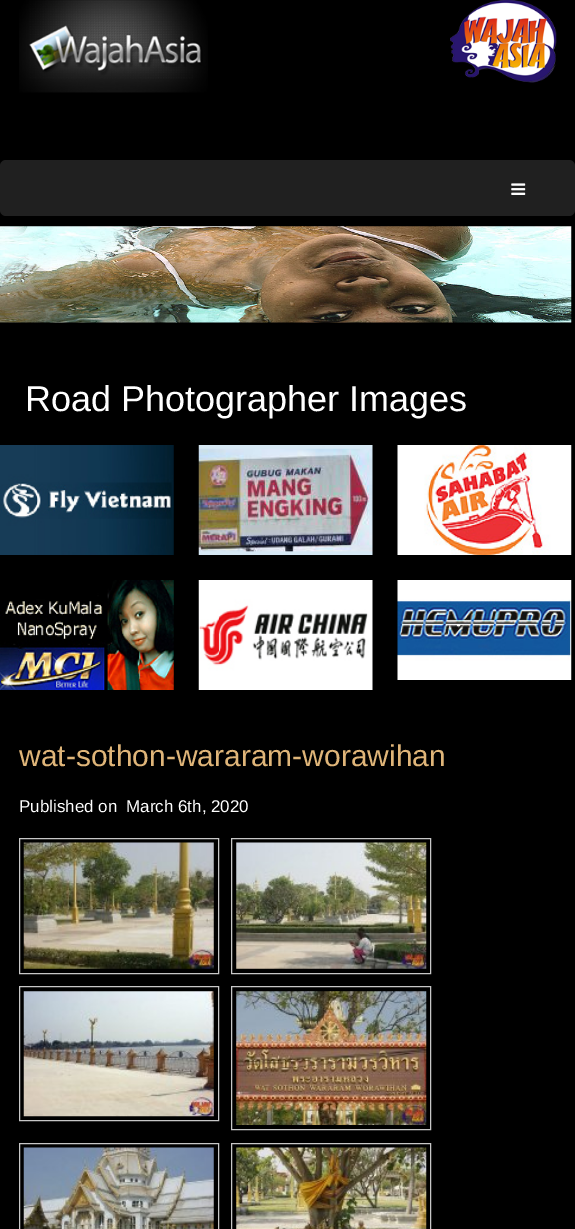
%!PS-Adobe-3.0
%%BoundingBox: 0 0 575 1229
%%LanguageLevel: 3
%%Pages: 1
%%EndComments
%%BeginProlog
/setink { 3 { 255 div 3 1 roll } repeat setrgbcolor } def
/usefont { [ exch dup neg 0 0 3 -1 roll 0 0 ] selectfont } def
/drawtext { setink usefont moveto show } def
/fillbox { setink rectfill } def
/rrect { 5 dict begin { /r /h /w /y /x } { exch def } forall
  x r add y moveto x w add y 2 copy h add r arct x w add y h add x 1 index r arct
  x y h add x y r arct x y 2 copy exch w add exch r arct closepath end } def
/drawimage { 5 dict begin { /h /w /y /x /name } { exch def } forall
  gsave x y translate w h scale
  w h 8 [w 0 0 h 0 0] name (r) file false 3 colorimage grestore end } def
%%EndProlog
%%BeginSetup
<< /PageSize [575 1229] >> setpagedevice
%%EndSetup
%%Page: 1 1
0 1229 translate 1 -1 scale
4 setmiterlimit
0 0 575 1229 0 0 0 fillbox
(assets/img1.rgb) 19 0 189 93 drawimage
(assets/img2.rgb) 450 0 107 83 drawimage
32 32 32 setink
0 160 575 56 6 rrect fill
(assets/img3.rgb) 511 183 15 12 drawimage
(assets/img4.rgb) 0 226 572 97 drawimage
(Road Photographer Images) 25 411 /LiberationSans-Regular 36 255 255 255 drawtext
(assets/img5.rgb) 0 445 174 110 drawimage
(assets/img6.rgb) 198 445 175 110 drawimage
(assets/img7.rgb) 397 445 175 110 drawimage
(assets/img8.rgb) 0 580 174 110 drawimage
(assets/img9.rgb) 198 580 175 110 drawimage
(assets/img10.rgb) 397 580 175 100 drawimage
(wat-sothon-wararam-worawihan) 19 766 /LiberationSans-Regular 30 223 181 121 drawtext
(Published on) 19 812 /LiberationSans-Regular 17 255 255 255 drawtext
(March 6th, 2020) 126 812 /LiberationSans-Regular 17 255 255 255 drawtext
199 199 199 setink
19.5 838.5 199 135 rectstroke
(assets/img11.rgb) 23 842 191 127 drawimage
231.5 838.5 199 135 rectstroke
(assets/img12.rgb) 236 842 191 127 drawimage
19.5 986.5 199 134 rectstroke
(assets/img13.rgb) 23 991 191 126 drawimage
231.5 986.5 199 143 rectstroke
(assets/img14.rgb) 236 991 191 134 drawimage
19.5 1143.5 199 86 rectstroke
(assets/img15.rgb) 23 1147 191 82 drawimage
231.5 1143.5 199 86 rectstroke
(assets/img16.rgb) 236 1147 191 82 drawimage
showpage
%%EOF
